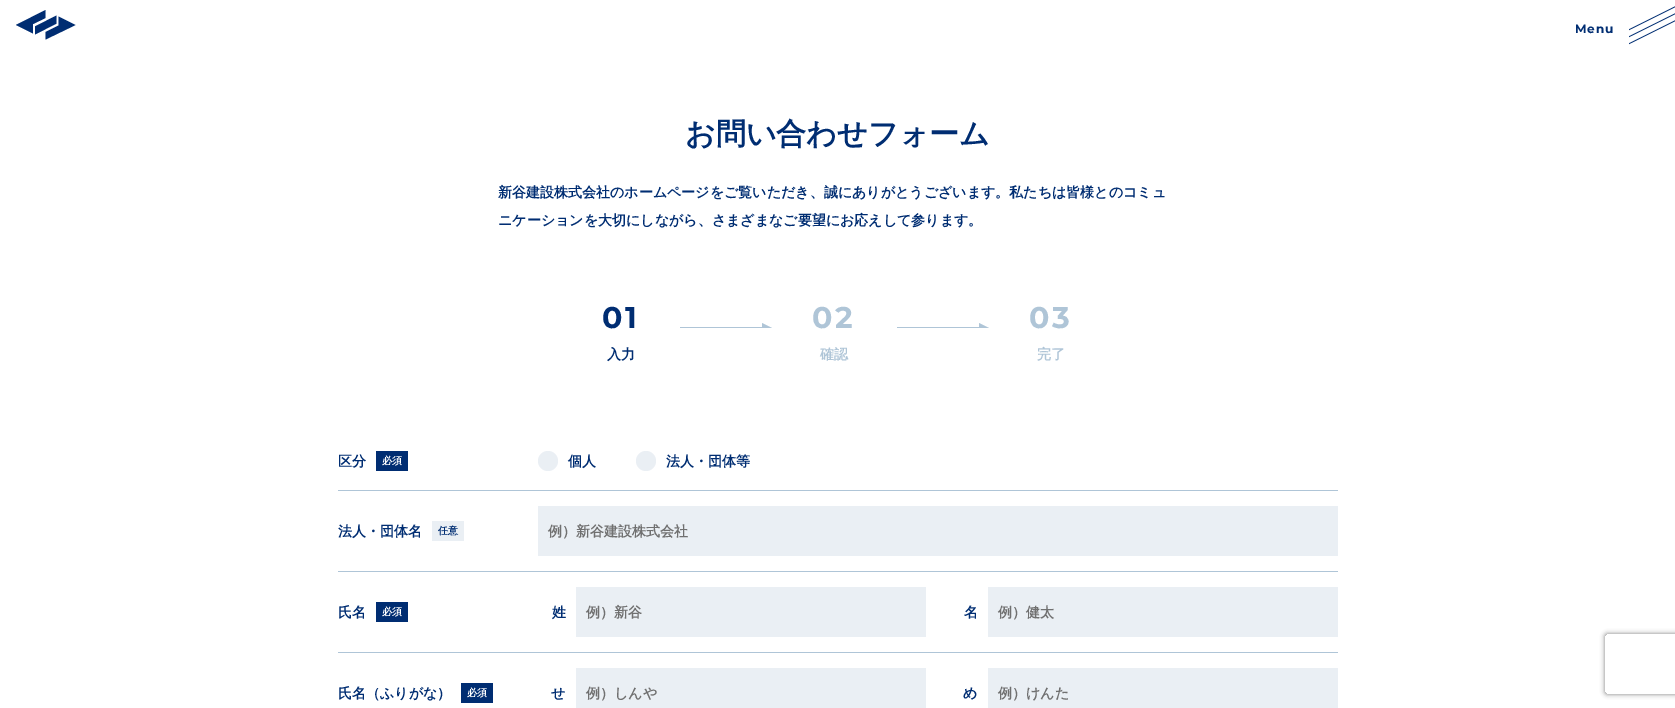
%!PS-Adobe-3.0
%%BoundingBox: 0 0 1675 708
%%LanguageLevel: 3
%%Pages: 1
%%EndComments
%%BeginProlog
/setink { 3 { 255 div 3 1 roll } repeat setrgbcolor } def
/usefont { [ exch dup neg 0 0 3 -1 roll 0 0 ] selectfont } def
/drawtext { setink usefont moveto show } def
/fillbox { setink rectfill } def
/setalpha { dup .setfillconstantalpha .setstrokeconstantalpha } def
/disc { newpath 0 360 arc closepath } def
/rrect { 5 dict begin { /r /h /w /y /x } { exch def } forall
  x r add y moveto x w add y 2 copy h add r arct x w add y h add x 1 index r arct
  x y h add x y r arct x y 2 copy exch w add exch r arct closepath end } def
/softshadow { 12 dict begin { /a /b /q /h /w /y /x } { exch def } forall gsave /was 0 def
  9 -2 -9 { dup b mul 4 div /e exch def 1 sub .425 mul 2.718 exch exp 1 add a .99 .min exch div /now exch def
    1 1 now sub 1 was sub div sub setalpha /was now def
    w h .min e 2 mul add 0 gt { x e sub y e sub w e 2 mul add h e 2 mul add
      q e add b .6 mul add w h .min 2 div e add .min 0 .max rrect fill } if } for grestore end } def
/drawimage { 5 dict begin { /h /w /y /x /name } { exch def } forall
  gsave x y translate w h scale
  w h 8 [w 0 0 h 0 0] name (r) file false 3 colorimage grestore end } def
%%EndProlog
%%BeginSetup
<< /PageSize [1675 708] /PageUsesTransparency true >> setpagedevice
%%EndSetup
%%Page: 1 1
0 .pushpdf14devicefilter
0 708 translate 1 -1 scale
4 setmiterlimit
0 0 1675 708 255 255 255 fillbox
0 45 114 setink
56.5 15.5 moveto 35 26.5 lineto 35 34.5 lineto 56.5 23.5 lineto closepath fill
45.5 10 moveto 16 25 lineto 33 33.5 lineto 33 24 lineto 45.5 18 lineto closepath fill
45.5 32 moveto 45.5 39.5 lineto 75.5 25 lineto 58.5 16.5 lineto 58.5 25.5 lineto closepath fill
/Montserrat-Thin 12 usefont
1575 33 moveto 1 0 (Menu) ashow
(assets/img1.rgb) 1629 6 46 39 drawimage
(お問い合わせフォーム) 685 144 /WenQuanYiZenHei-Bold 30 0 45 114 drawtext
(新谷建設株式会社のホームページをご覧いただき、誠にありがとうございます。私たちは皆様とのコミュ) 498 197 /WenQuanYiZenHei-Bold 14 0 45 114 drawtext
(ニケーションを大切にしながら、さまざまなご要望にお応えして参ります。) 498 225 /WenQuanYiZenHei-Bold 14 0 45 114 drawtext
/Montserrat-Thin 30 usefont
602 328 moveto 3 0 (01) ashow
(入力) 607 359 /WenQuanYiZenHei-Bold 14 0 45 114 drawtext
680 327 90 1 175 197 215 fillbox
762 328 moveto 762 323 lineto 772 328 lineto closepath fill
/Montserrat-Thin 30 usefont
812 328 moveto 3 0 (02) ashow
(確認) 820 359 /WenQuanYiZenHei-Bold 14 175 197 215 drawtext
897 327 90 1 175 197 215 fillbox
979 328 moveto 979 323 lineto 989 328 lineto closepath fill
/Montserrat-Thin 30 usefont
1029 328 moveto 3 0 (03) ashow
(完了) 1037 359 /WenQuanYiZenHei-Bold 14 175 197 215 drawtext
338 490 1000 1 175 197 215 fillbox
(区分) 338 466 /WenQuanYiZenHei-Bold 14 0 45 114 drawtext
376 451 32 20 0 45 114 fillbox
(必須) 382 464 /WenQuanYiZenHei-Bold 10 255 255 255 drawtext
234 239 244 setink
548 461 10 disc fill
(個人) 568 466 /WenQuanYiZenHei-Bold 14 0 45 114 drawtext
234 239 244 setink
646 461 10 disc fill
(法人・団体等) 666 466 /WenQuanYiZenHei-Bold 14 0 45 114 drawtext
338 571 1000 1 175 197 215 fillbox
(法人・団体名) 338 536 /WenQuanYiZenHei-Bold 14 0 45 114 drawtext
432 521 32 20 234 239 244 fillbox
(任意) 438 534 /WenQuanYiZenHei-Bold 10 0 45 114 drawtext
538 506 800 50 234 239 244 fillbox
(例）新谷建設株式会社) 548 536 /WenQuanYiZenHei-Bold 14 112 112 112 drawtext
338 652 1000 1 175 197 215 fillbox
(氏名) 338 617 /WenQuanYiZenHei-Bold 14 0 45 114 drawtext
376 602 32 20 0 45 114 fillbox
(必須) 382 615 /WenQuanYiZenHei-Bold 10 255 255 255 drawtext
(姓) 552 617 /WenQuanYiZenHei-Bold 14 0 45 114 drawtext
576 587 350 50 234 239 244 fillbox
(例）新谷) 586 617 /WenQuanYiZenHei-Bold 14 112 112 112 drawtext
(名) 964 617 /WenQuanYiZenHei-Bold 14 0 45 114 drawtext
988 587 350 50 234 239 244 fillbox
(例）健太) 998 617 /WenQuanYiZenHei-Bold 14 112 112 112 drawtext
(氏名（ふりがな）) 338 698 /WenQuanYiZenHei-Bold 14 0 45 114 drawtext
461 683 32 20 0 45 114 fillbox
(必須) 467 696 /WenQuanYiZenHei-Bold 10 255 255 255 drawtext
(せ) 551 698 /WenQuanYiZenHei-Bold 14 0 45 114 drawtext
576 668 350 40 234 239 244 fillbox
(例）しんや) 586 698 /WenQuanYiZenHei-Bold 14 112 112 112 drawtext
(め) 963 698 /WenQuanYiZenHei-Bold 14 0 45 114 drawtext
988 668 350 40 234 239 244 fillbox
(例）けんた) 998 698 /WenQuanYiZenHei-Bold 14 112 112 112 drawtext
gsave
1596 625 moveto 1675 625 lineto 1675 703 lineto 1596 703 lineto closepath 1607 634 moveto 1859 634 lineto 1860 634 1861 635 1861 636 curveto 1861 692 lineto 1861 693 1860 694 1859 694 curveto 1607 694 lineto 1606 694 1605 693 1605 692 curveto 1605 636 lineto 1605 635 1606 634 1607 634 curveto closepath eoclip newpath
128 128 128 setink
1605 634 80 60 2 2.5 1 softshadow
grestore
.poppdf14devicefilter showpage
%%EOF
